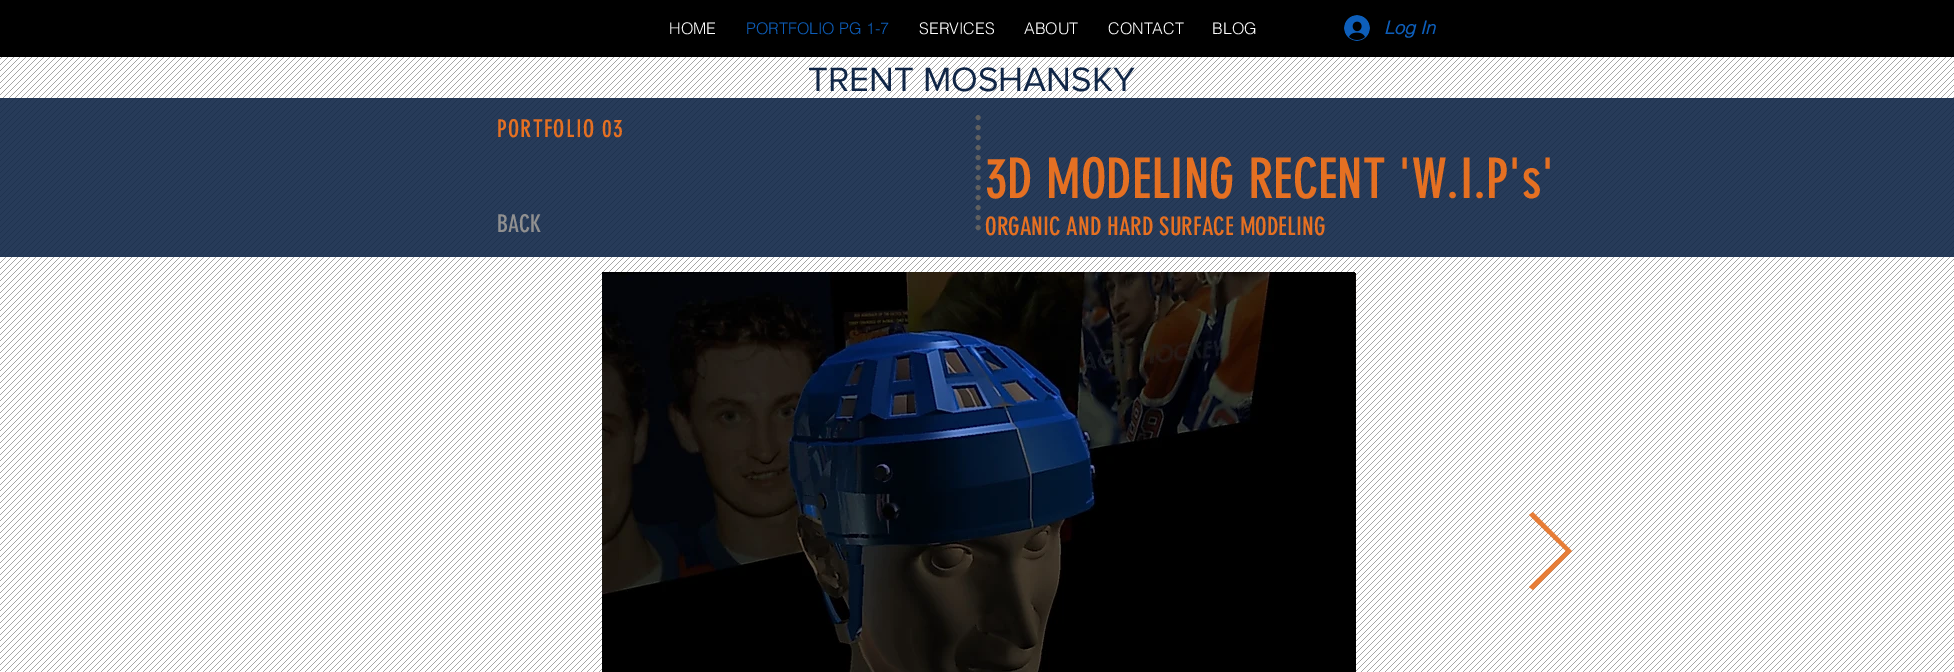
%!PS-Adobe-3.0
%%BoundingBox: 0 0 1954 672
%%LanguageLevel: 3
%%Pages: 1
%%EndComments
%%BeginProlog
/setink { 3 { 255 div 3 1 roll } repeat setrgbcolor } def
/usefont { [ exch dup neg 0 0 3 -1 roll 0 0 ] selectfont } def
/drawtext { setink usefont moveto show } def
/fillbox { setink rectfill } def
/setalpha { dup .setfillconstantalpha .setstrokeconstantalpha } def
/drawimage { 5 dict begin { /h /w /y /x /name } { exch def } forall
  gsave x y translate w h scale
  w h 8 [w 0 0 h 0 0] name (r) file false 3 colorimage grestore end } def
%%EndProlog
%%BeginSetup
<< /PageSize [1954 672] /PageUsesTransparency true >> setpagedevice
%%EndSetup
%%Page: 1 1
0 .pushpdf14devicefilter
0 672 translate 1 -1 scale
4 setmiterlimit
0 0 1954 672 255 255 255 fillbox
0 0 1954 57 0 0 0 fillbox
(HOME) 669 34 /helvetica-Light 16 255 255 255 drawtext
(PORTFOLIO PG 1-7) 746 34 /helvetica-Light 16 13 94 186 drawtext
(SERVICES) 919 34 /helvetica-Light 16 255 255 255 drawtext
(ABOUT) 1024 34 /helvetica-Light 16 255 255 255 drawtext
(CONTACT) 1108 34 /helvetica-Light 16 255 255 255 drawtext
(BLOG) 1212 34 /helvetica-Light 16 255 255 255 drawtext
(assets/img1.rgb) 1344 15 26 26 drawimage
(Log In) 1384 34 /helvetica-BoldItalic 18 13 94 186 drawtext
(assets/img4.rgb) 0 57 1954 615 drawimage
(TRENT MOSHANSKY) 808 91 /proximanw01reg-Regular 35 16 38 71 drawtext
0.9 setalpha
0 98 1954 159 16 38 71 fillbox
/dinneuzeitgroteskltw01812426-Regular 24 usefont
1 setalpha
229 112 34 setink
497 137 moveto 1.25 0 (PORTFOLIO 03) ashow
96 96 96 setink
5 setlinewidth
1 setlinecap
[0 10] 0 setdash
978 227.5 moveto 978 117.5 lineto stroke
(BACK) 497 232 /dinneuzeitgroteskltw01812426-Regular 24 144 144 144 drawtext
(3D MODELING RECENT 'W.I.P's') 985 198 /dinneuzeitgroteskltw01812426-Regular 55 229 112 34 drawtext
(ORGANIC AND HARD SURFACE MODELING) 985 235 /dinneuzeitgroteskltw01812426-Regular 25 229 112 34 drawtext
(assets/img2.rgb) 602 272 753 400 drawimage
(assets/img3.rgb) 1355 273 1 399 drawimage
0.9 setalpha
1529 515 moveto 1533 512 lineto 1572 551 lineto 1533 590 lineto 1529 587 lineto 1566 551 lineto closepath fill
.poppdf14devicefilter showpage
%%EOF
